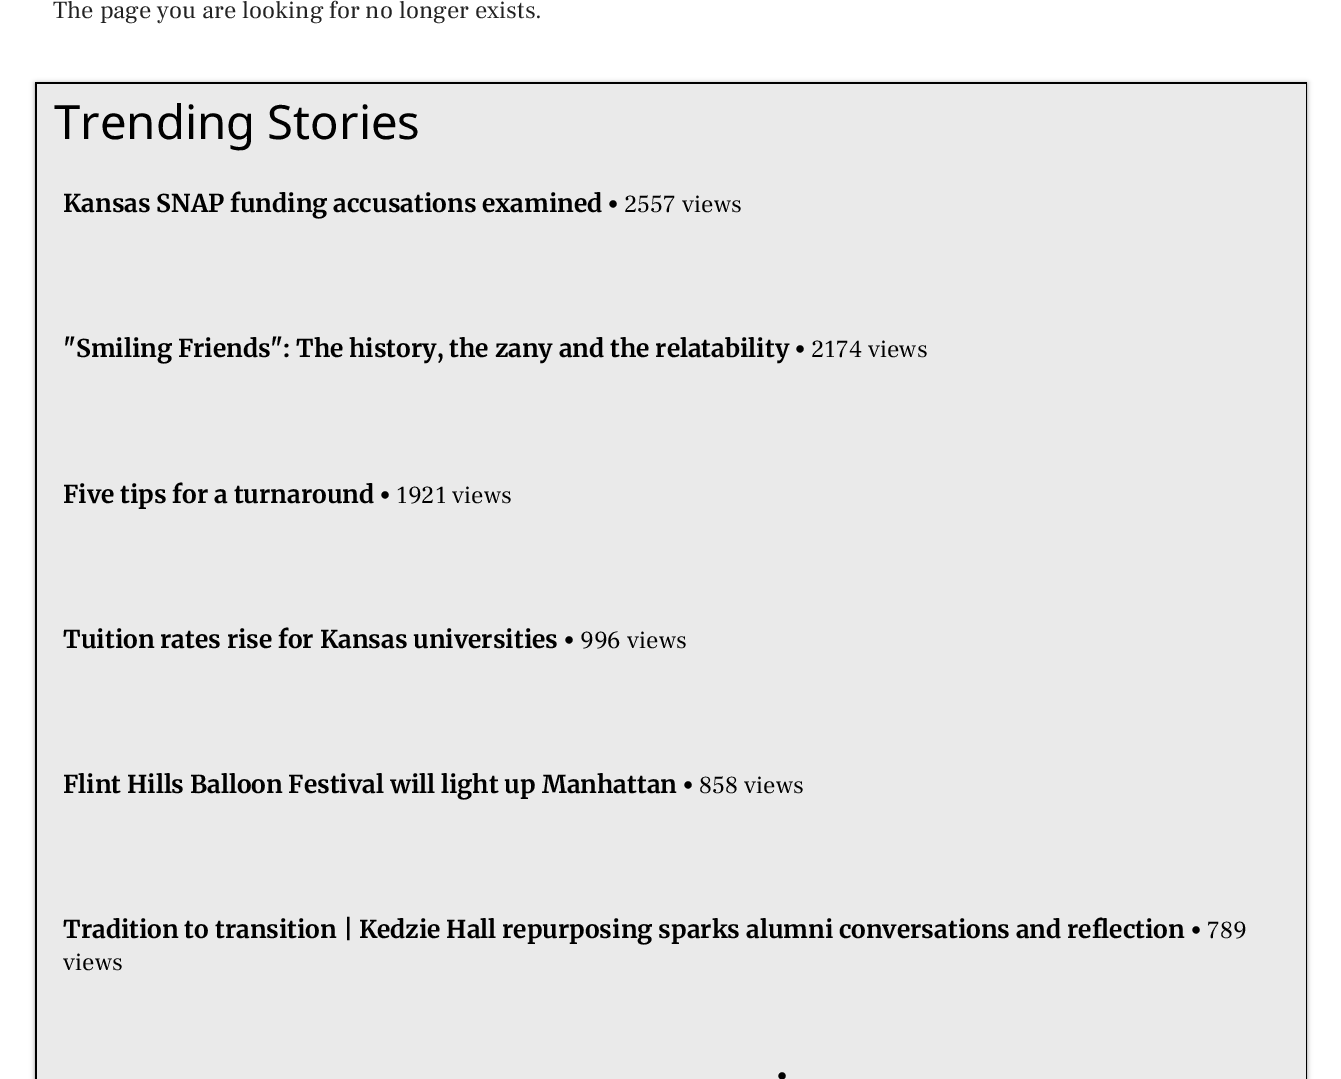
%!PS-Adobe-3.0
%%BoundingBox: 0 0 1341 1079
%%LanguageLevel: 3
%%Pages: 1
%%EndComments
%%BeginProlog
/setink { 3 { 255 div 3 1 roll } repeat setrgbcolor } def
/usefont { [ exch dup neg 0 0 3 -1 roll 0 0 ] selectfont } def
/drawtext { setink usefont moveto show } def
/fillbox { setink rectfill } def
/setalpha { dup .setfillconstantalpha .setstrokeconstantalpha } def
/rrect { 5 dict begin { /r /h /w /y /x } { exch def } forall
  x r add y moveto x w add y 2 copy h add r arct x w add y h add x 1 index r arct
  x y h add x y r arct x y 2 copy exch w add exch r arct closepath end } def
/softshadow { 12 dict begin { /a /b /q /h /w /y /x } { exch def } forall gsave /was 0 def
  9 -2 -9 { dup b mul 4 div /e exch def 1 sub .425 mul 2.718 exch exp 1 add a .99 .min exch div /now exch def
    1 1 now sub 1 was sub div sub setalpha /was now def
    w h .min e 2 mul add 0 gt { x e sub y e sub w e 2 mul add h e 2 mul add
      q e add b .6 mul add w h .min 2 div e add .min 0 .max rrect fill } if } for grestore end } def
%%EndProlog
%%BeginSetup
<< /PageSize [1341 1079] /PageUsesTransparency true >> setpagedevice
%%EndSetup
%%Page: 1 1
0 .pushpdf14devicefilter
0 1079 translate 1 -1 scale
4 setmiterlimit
0 0 1341 1079 255 255 255 fillbox
(The page you are looking for no longer exists.) 53 18 /FrankRuhlLibre-Regular 24.5 34 34 34 drawtext
0 0 0 setink
35 84 1272 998 0 1 0.24 softshadow
37 82 1272 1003 0 2 0.12 softshadow
33 82 1273 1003 0 2 0.12 softshadow
37 84 1269 995 234 234 234 fillbox
35 82 1272 2 0 0 0 fillbox
1306 82 1 997 0 0 0 fillbox
35 82 2 997 0 0 0 fillbox
(Trending Stories) 54 139 /NotoSans-Regular 47.25 0 0 0 drawtext
(Kansas SNAP funding accusations examined) 63 212 /Merriweather-Bold 24.5 0 0 0 drawtext
(• 2557 views) 608 212 /FrankRuhlLibre-Regular 24.5 0 0 0 drawtext
("Smiling Friends": The history, the zany and the relatability) 63 357 /Merriweather-Bold 24.5 0 0 0 drawtext
(• 2174 views) 795 357 /FrankRuhlLibre-Regular 24.5 0 0 0 drawtext
(Five tips for a turnaround) 63 503 /Merriweather-Bold 24.5 0 0 0 drawtext
(• 1921 views) 380 503 /FrankRuhlLibre-Regular 24.5 0 0 0 drawtext
(Tuition rates rise for Kansas universities) 63 648 /Merriweather-Bold 24.5 0 0 0 drawtext
(• 996 views) 564 648 /FrankRuhlLibre-Regular 24.5 0 0 0 drawtext
(Flint Hills Balloon Festival will light up Manhattan) 63 793 /Merriweather-Bold 24.5 0 0 0 drawtext
(• 858 views) 683 793 /FrankRuhlLibre-Regular 24.5 0 0 0 drawtext
(Tradition to transition | Kedzie Hall repurposing sparks alumni conversations and reflection) 63 938 /Merriweather-Bold 24.5 0 0 0 drawtext
(• 789) 1191 938 /FrankRuhlLibre-Regular 24.5 0 0 0 drawtext
(views) 63 970 /FrankRuhlLibre-Regular 24.5 0 0 0 drawtext
(•) 777 1084 /FrankRuhlLibre-Regular 24.5 0 0 0 drawtext
.poppdf14devicefilter showpage
%%EOF
